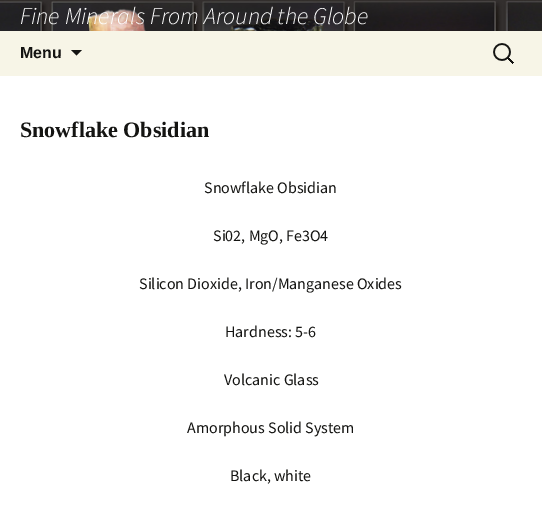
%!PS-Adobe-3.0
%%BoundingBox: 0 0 542 516
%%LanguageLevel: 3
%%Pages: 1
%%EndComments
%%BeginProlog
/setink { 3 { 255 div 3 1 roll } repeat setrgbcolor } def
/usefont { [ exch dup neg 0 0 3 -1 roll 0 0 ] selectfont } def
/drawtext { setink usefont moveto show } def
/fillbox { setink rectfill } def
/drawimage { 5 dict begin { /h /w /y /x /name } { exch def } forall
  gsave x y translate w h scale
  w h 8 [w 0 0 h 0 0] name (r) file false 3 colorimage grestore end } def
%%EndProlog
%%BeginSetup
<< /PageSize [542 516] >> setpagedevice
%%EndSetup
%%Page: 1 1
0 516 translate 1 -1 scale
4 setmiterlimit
0 0 542 516 255 255 255 fillbox
(assets/img1.rgb) 0 0 542 31 drawimage
(Fine Minerals From Around the Globe) 20 24 /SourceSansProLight-LightItalic 24 255 255 255 drawtext
0 31 542 45 247 245 231 fillbox
(Menu) 20 58 /LiberationSans-Bold 16 20 20 18 drawtext
71 50 moveto 82 50 lineto 76.5 55.5 lineto closepath fill
(assets/img2.rgb) 493 43 21 21 drawimage
(Snowflake Obsidian) 20 137 /LiberationSerif-Bold 22 20 20 18 drawtext
(Snowflake Obsidian) 204 193 /SourceSansPro-Regular 16 20 20 18 drawtext
(Si02, MgO, Fe3O4) 213 241 /SourceSansPro-Regular 16 20 20 18 drawtext
(Silicon Dioxide, Iron/Manganese Oxides) 139 289 /SourceSansPro-Regular 16 20 20 18 drawtext
(Hardness: 5-6) 225 337 /SourceSansPro-Regular 16 20 20 18 drawtext
(Volcanic Glass) 224 385 /SourceSansPro-Regular 16 20 20 18 drawtext
(Amorphous Solid System) 187 433 /SourceSansPro-Regular 16 20 20 18 drawtext
(Black, white) 230 481 /SourceSansPro-Regular 16 20 20 18 drawtext
showpage
%%EOF
